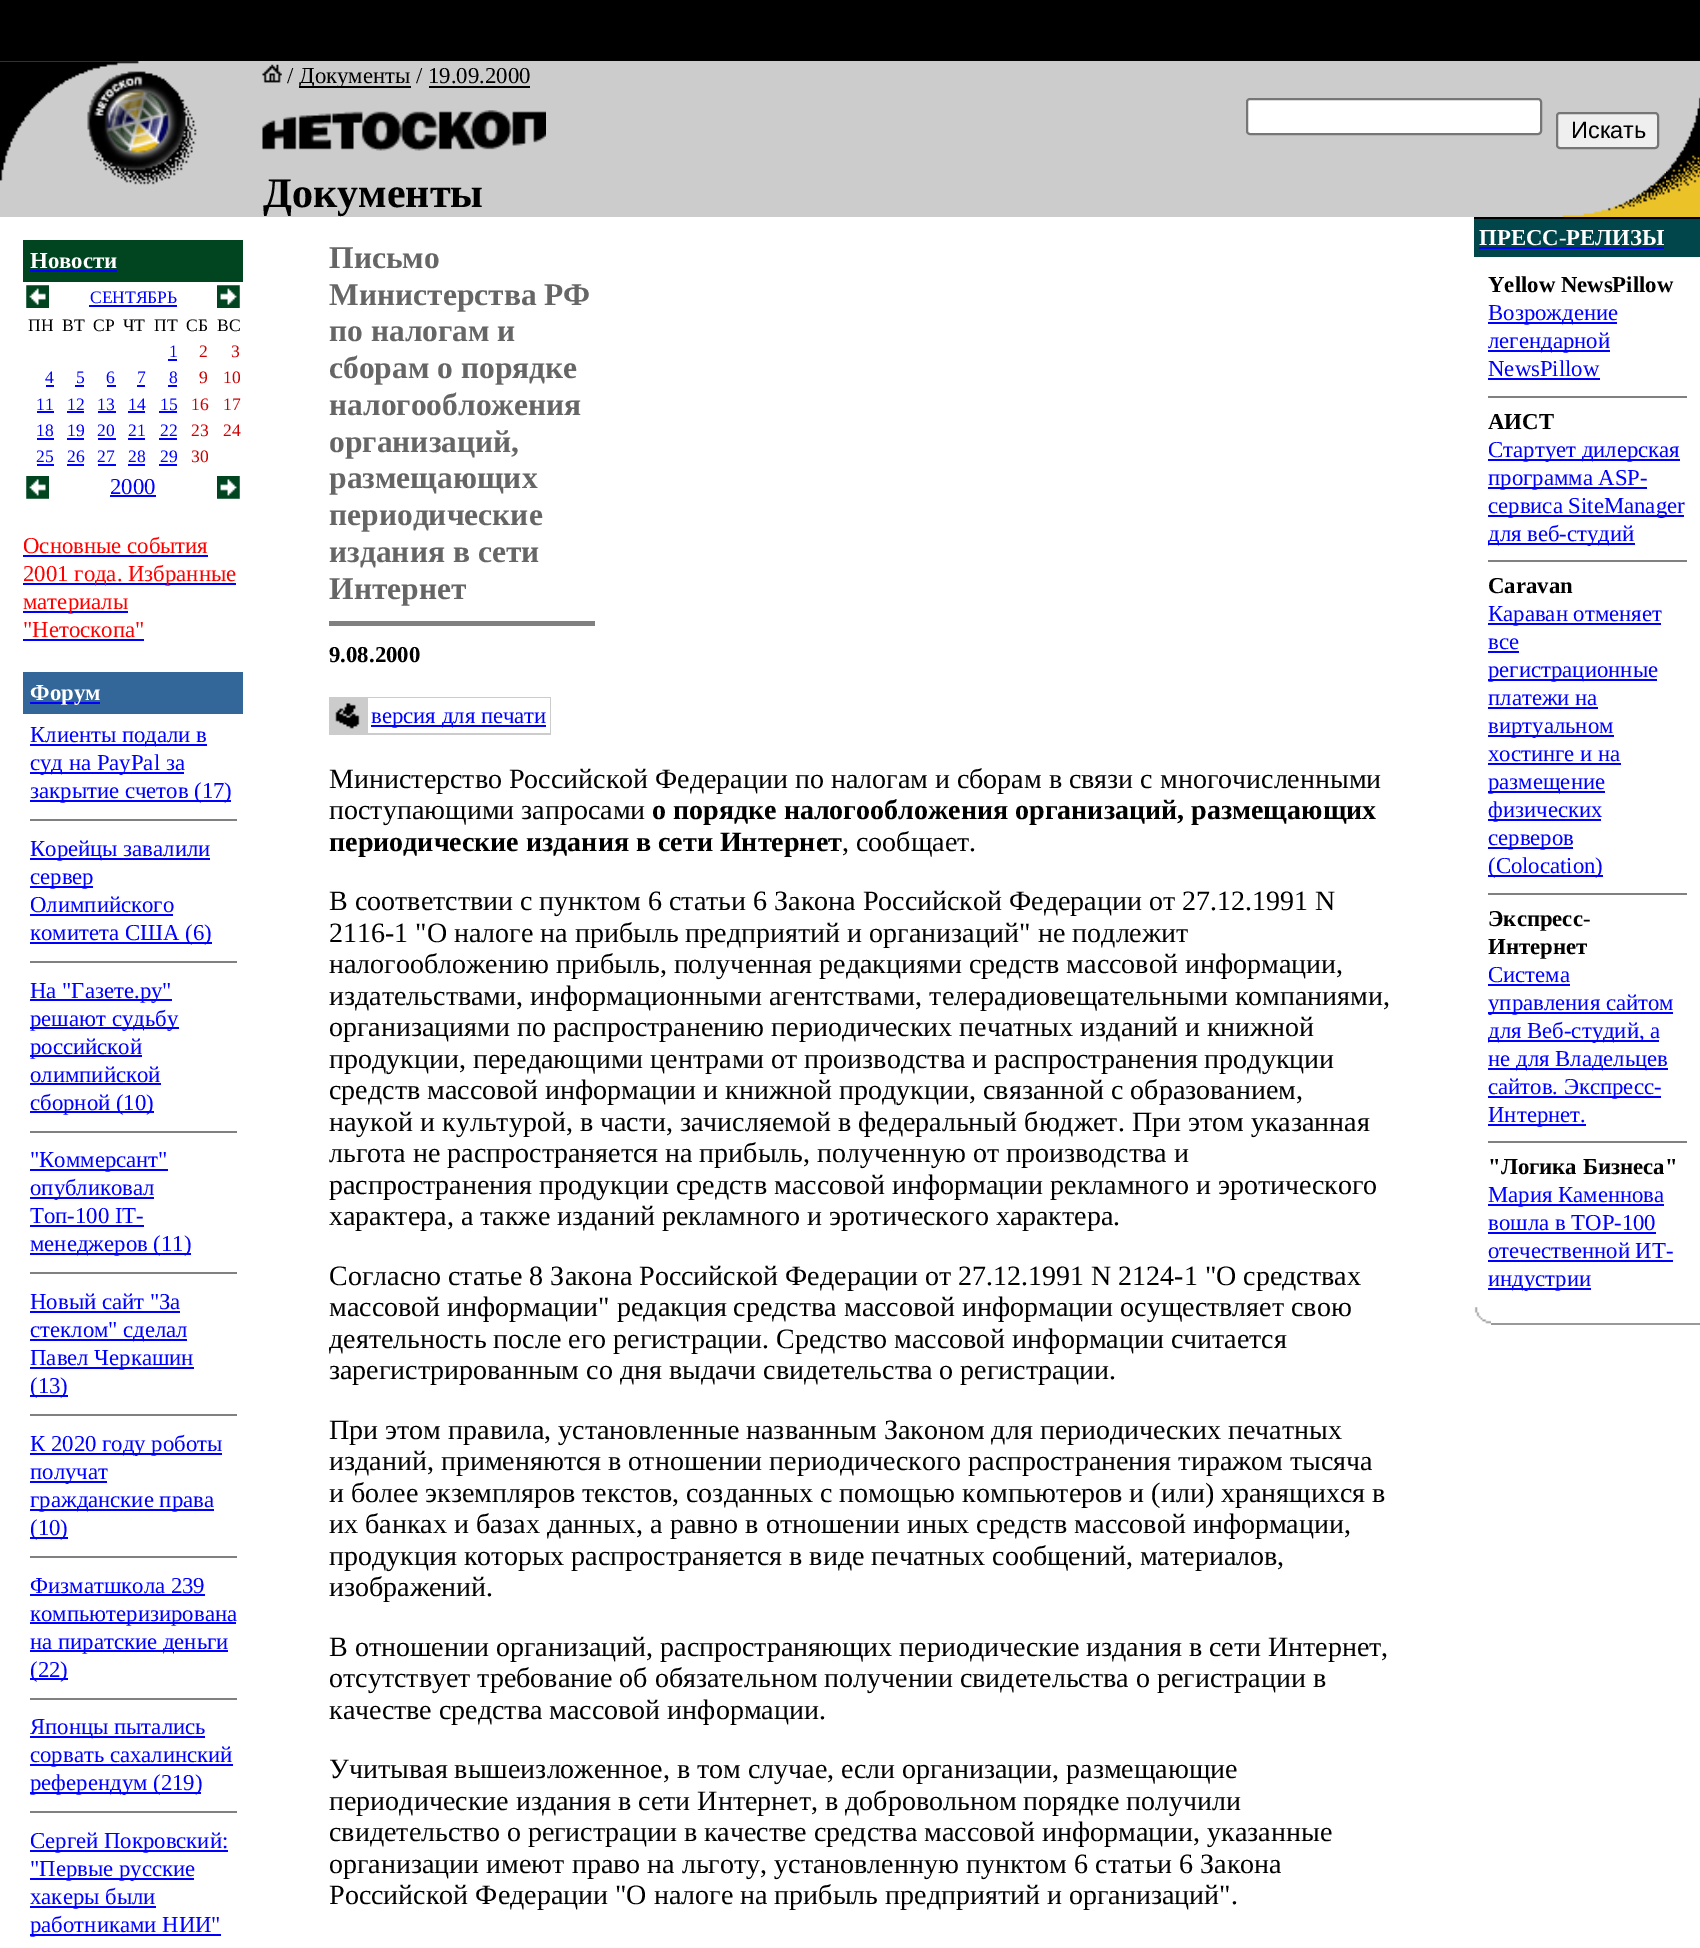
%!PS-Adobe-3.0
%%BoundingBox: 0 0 1700 1948
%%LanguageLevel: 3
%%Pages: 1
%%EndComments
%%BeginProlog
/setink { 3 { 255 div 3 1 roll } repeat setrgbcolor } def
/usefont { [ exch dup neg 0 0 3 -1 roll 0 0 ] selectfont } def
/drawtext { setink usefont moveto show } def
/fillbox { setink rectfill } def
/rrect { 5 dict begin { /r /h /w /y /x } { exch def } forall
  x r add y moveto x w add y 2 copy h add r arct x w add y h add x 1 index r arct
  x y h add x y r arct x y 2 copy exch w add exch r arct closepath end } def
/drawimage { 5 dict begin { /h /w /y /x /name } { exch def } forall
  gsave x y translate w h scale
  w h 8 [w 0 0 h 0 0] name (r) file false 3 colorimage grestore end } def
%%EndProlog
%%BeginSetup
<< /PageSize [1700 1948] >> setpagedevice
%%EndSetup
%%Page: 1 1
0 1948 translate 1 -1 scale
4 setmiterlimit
0 0 1700 1948 255 255 255 fillbox
0 0 1700 61 0 0 0 fillbox
0 61 1700 156 204 204 204 fillbox
(assets/img1.rgb) 0 61 197 124 drawimage
(assets/img2.rgb) 262 64 20 19 drawimage
(/) 287 83 /LiberationSerif-Regular 22.75 0 0 0 drawtext
299 86 112 2 0 0 0 fillbox
(Документы / 19.09.2000) 299 83 /LiberationSerif-Regular 22.75 0 0 0 drawtext
429 86 101 2 0 0 0 fillbox
(assets/img3.rgb) 262 110 284 41 drawimage
255 255 255 setink
1247 99 294 35 3 rrect gsave fill grestore
118 118 118 setink
2 setlinewidth
stroke
239 239 239 setink
1557 113 101 35 3 rrect gsave fill grestore
118 118 118 setink
stroke
(Искать) 1571 138 /LiberationSans-Regular 23.5 0 0 0 drawtext
(Документы) 263 207 /LiberationSerif-Bold 42 0 0 0 drawtext
(assets/img4.rgb) 1562 173 104 44 drawimage
(assets/img5.rgb) 1666 97 34 120 drawimage
23 240 220 42 0 69 32 fillbox
(Новости) 30 268 /LiberationSerif-Bold 22.75 255 255 255 drawtext
30 270 87 2 0 0 255 fillbox
(assets/img6.rgb) 26 285 23 23 drawimage
(СЕНТЯБРЬ) 90 303 /LiberationSerif-Regular 17.5 0 0 255 drawtext
89 305 88 2 0 0 255 fillbox
(assets/img7.rgb) 217 285 23 23 drawimage
(ПН) 28 331 /LiberationSerif-Regular 17.5 0 0 0 drawtext
(ВТ) 62 331 /LiberationSerif-Regular 17.5 0 0 0 drawtext
(СР) 93 331 /LiberationSerif-Regular 17.5 0 0 0 drawtext
(ЧТ) 123 331 /LiberationSerif-Regular 17.5 0 0 0 drawtext
(ПТ) 154 331 /LiberationSerif-Regular 17.5 0 0 0 drawtext
(СБ) 186 331 /LiberationSerif-Regular 17.5 0 0 0 drawtext
(ВС) 217 331 /LiberationSerif-Regular 17.5 0 0 0 drawtext
(1) 169 357 /LiberationSerif-Regular 17.5 0 0 255 drawtext
168 359 9 2 0 0 255 fillbox
(2) 199 357 /LiberationSerif-Regular 17.5 204 0 0 drawtext
(3) 231 357 /LiberationSerif-Regular 17.5 204 0 0 drawtext
(4) 45 383 /LiberationSerif-Regular 17.5 0 0 255 drawtext
46 385 8 2 0 0 255 fillbox
(5) 76 383 /LiberationSerif-Regular 17.5 0 0 255 drawtext
75 385 9 2 0 0 255 fillbox
(6) 106 383 /LiberationSerif-Regular 17.5 0 0 255 drawtext
107 385 9 2 0 0 255 fillbox
(7) 137 383 /LiberationSerif-Regular 17.5 0 0 255 drawtext
137 385 8 2 0 0 255 fillbox
(8) 169 383 /LiberationSerif-Regular 17.5 0 0 255 drawtext
168 385 9 2 0 0 255 fillbox
(9) 199 383 /LiberationSerif-Regular 17.5 204 0 0 drawtext
(10) 223 383 /LiberationSerif-Regular 17.5 204 0 0 drawtext
(11) 36 410 /LiberationSerif-Regular 17.5 0 0 255 drawtext
37 411 17 2 0 0 255 fillbox
(12) 67 410 /LiberationSerif-Regular 17.5 0 0 255 drawtext
67 411 17 2 0 0 255 fillbox
(13) 97 410 /LiberationSerif-Regular 17.5 0 0 255 drawtext
98 411 18 2 0 0 255 fillbox
(14) 128 410 /LiberationSerif-Regular 17.5 0 0 255 drawtext
128 411 17 2 0 0 255 fillbox
(15) 160 410 /LiberationSerif-Regular 17.5 0 0 255 drawtext
159 411 18 2 0 0 255 fillbox
(16) 191 410 /LiberationSerif-Regular 17.5 204 0 0 drawtext
(17) 223 410 /LiberationSerif-Regular 17.5 204 0 0 drawtext
(18) 36 436 /LiberationSerif-Regular 17.5 0 0 255 drawtext
37 438 17 2 0 0 255 fillbox
(19) 67 436 /LiberationSerif-Regular 17.5 0 0 255 drawtext
67 438 17 2 0 0 255 fillbox
(20) 97 436 /LiberationSerif-Regular 17.5 0 0 255 drawtext
98 438 18 2 0 0 255 fillbox
(21) 128 436 /LiberationSerif-Regular 17.5 0 0 255 drawtext
128 438 17 2 0 0 255 fillbox
(22) 160 436 /LiberationSerif-Regular 17.5 0 0 255 drawtext
159 438 18 2 0 0 255 fillbox
(23) 191 436 /LiberationSerif-Regular 17.5 204 0 0 drawtext
(24) 223 436 /LiberationSerif-Regular 17.5 204 0 0 drawtext
(25) 36 462 /LiberationSerif-Regular 17.5 0 0 255 drawtext
37 464 17 2 0 0 255 fillbox
(26) 67 462 /LiberationSerif-Regular 17.5 0 0 255 drawtext
67 464 17 2 0 0 255 fillbox
(27) 97 462 /LiberationSerif-Regular 17.5 0 0 255 drawtext
98 464 18 2 0 0 255 fillbox
(28) 128 462 /LiberationSerif-Regular 17.5 0 0 255 drawtext
128 464 17 2 0 0 255 fillbox
(29) 160 462 /LiberationSerif-Regular 17.5 0 0 255 drawtext
159 464 18 2 0 0 255 fillbox
(30) 191 462 /LiberationSerif-Regular 17.5 204 0 0 drawtext
(assets/img8.rgb) 26 476 23 23 drawimage
(2000) 110 494 /LiberationSerif-Regular 22.75 0 0 255 drawtext
110 495 46 2 0 0 255 fillbox
(assets/img9.rgb) 217 476 23 23 drawimage
(Основные события) 23 553 /LiberationSerif-Regular 22.75 255 0 0 drawtext
23 555 185 2 0 0 255 fillbox
23 583 213 2 0 0 255 fillbox
(2001 года. Избранные) 23 581 /LiberationSerif-Regular 22.75 255 0 0 drawtext
23 611 105 2 0 0 255 fillbox
(материалы) 23 609 /LiberationSerif-Regular 22.75 255 0 0 drawtext
("Нетоскопа") 23 637 /LiberationSerif-Regular 22.75 255 0 0 drawtext
23 639 121 2 0 0 255 fillbox
23 672 220 42 51 102 153 fillbox
30 702 70 2 0 0 255 fillbox
(Форум) 30 700 /LiberationSerif-Bold 22.75 255 255 255 drawtext
30 744 177 2 0 0 255 fillbox
(Клиенты подали в) 30 742 /LiberationSerif-Regular 22.75 0 0 255 drawtext
30 772 154 2 0 0 255 fillbox
(суд на PayPal за) 30 770 /LiberationSerif-Regular 22.75 0 0 255 drawtext
30 800 201 2 0 0 255 fillbox
(закрытие счетов \(17\)) 30 798 /LiberationSerif-Regular 22.75 0 0 255 drawtext
30 819 207 2 128 128 128 fillbox
30 858 180 2 0 0 255 fillbox
(Корейцы завалили) 30 856 /LiberationSerif-Regular 22.75 0 0 255 drawtext
30 886 63 2 0 0 255 fillbox
(сервер) 30 884 /LiberationSerif-Regular 22.75 0 0 255 drawtext
(Олимпийского) 30 912 /LiberationSerif-Regular 22.75 0 0 255 drawtext
30 914 143 2 0 0 255 fillbox
30 942 182 2 0 0 255 fillbox
(комитета США \(6\)) 30 940 /LiberationSerif-Regular 22.75 0 0 255 drawtext
30 961 207 2 128 128 128 fillbox
30 999 142 2 0 0 255 fillbox
(На "Газете.ру") 30 998 /LiberationSerif-Regular 22.75 0 0 255 drawtext
30 1027 149 2 0 0 255 fillbox
(решают судьбу) 30 1026 /LiberationSerif-Regular 22.75 0 0 255 drawtext
30 1055 112 2 0 0 255 fillbox
(российской) 30 1054 /LiberationSerif-Regular 22.75 0 0 255 drawtext
(олимпийской) 30 1082 /LiberationSerif-Regular 22.75 0 0 255 drawtext
30 1083 131 2 0 0 255 fillbox
30 1111 124 2 0 0 255 fillbox
(сборной \(10\)) 30 1110 /LiberationSerif-Regular 22.75 0 0 255 drawtext
30 1131 207 2 128 128 128 fillbox
30 1169 138 2 0 0 255 fillbox
("Коммерсант") 30 1167 /LiberationSerif-Regular 22.75 0 0 255 drawtext
30 1197 124 2 0 0 255 fillbox
(опубликовал) 30 1195 /LiberationSerif-Regular 22.75 0 0 255 drawtext
(Топ-100 IT-) 30 1223 /LiberationSerif-Regular 22.75 0 0 255 drawtext
30 1225 114 2 0 0 255 fillbox
30 1253 161 2 0 0 255 fillbox
(менеджеров \(11\)) 30 1251 /LiberationSerif-Regular 22.75 0 0 255 drawtext
30 1272 207 2 128 128 128 fillbox
(Новый сайт "За) 30 1309 /LiberationSerif-Regular 22.75 0 0 255 drawtext
30 1311 150 2 0 0 255 fillbox
30 1339 157 2 0 0 255 fillbox
(стеклом" сделал) 30 1337 /LiberationSerif-Regular 22.75 0 0 255 drawtext
30 1367 164 2 0 0 255 fillbox
(Павел Черкашин) 30 1365 /LiberationSerif-Regular 22.75 0 0 255 drawtext
30 1395 38 2 0 0 255 fillbox
(\(13\)) 30 1393 /LiberationSerif-Regular 22.75 0 0 255 drawtext
30 1414 207 2 128 128 128 fillbox
30 1453 192 2 0 0 255 fillbox
(К 2020 году роботы) 30 1451 /LiberationSerif-Regular 22.75 0 0 255 drawtext
30 1481 77 2 0 0 255 fillbox
(получат) 30 1479 /LiberationSerif-Regular 22.75 0 0 255 drawtext
30 1509 184 2 0 0 255 fillbox
(гражданские права) 30 1507 /LiberationSerif-Regular 22.75 0 0 255 drawtext
30 1537 38 2 0 0 255 fillbox
(\(10\)) 30 1535 /LiberationSerif-Regular 22.75 0 0 255 drawtext
30 1556 207 2 128 128 128 fillbox
(Физматшкола 239) 30 1593 /LiberationSerif-Regular 22.75 0 0 255 drawtext
30 1594 175 2 0 0 255 fillbox
30 1622 206 2 0 0 255 fillbox
(компьютеризирована) 30 1621 /LiberationSerif-Regular 22.75 0 0 255 drawtext
30 1650 198 2 0 0 255 fillbox
(на пиратские деньги) 30 1649 /LiberationSerif-Regular 22.75 0 0 255 drawtext
30 1678 38 2 0 0 255 fillbox
(\(22\)) 30 1677 /LiberationSerif-Regular 22.75 0 0 255 drawtext
30 1698 207 2 128 128 128 fillbox
30 1736 175 2 0 0 255 fillbox
(Японцы пытались) 30 1734 /LiberationSerif-Regular 22.75 0 0 255 drawtext
30 1764 203 2 0 0 255 fillbox
(сорвать сахалинский) 30 1762 /LiberationSerif-Regular 22.75 0 0 255 drawtext
30 1792 171 2 0 0 255 fillbox
(референдум \(219\)) 30 1790 /LiberationSerif-Regular 22.75 0 0 255 drawtext
30 1811 207 2 128 128 128 fillbox
30 1850 198 2 0 0 255 fillbox
(Сергей Покровский:) 30 1848 /LiberationSerif-Regular 22.75 0 0 255 drawtext
30 1878 164 2 0 0 255 fillbox
("Первые русские) 30 1876 /LiberationSerif-Regular 22.75 0 0 255 drawtext
30 1906 126 2 0 0 255 fillbox
(хакеры были) 30 1904 /LiberationSerif-Regular 22.75 0 0 255 drawtext
30 1934 191 2 0 0 255 fillbox
(работниками НИИ") 30 1932 /LiberationSerif-Regular 22.75 0 0 255 drawtext
(Письмо) 329 268 /LiberationSerif-Bold 31.5 102 102 102 drawtext
(Министерства РФ) 329 305 /LiberationSerif-Bold 31.5 102 102 102 drawtext
(по налогам и) 329 341 /LiberationSerif-Bold 31.5 102 102 102 drawtext
(сборам о порядке) 329 378 /LiberationSerif-Bold 31.5 102 102 102 drawtext
(налогообложения) 329 415 /LiberationSerif-Bold 31.5 102 102 102 drawtext
(организаций,) 329 452 /LiberationSerif-Bold 31.5 102 102 102 drawtext
(размещающих) 329 488 /LiberationSerif-Bold 31.5 102 102 102 drawtext
(периодические) 329 525 /LiberationSerif-Bold 31.5 102 102 102 drawtext
(издания в сети) 329 562 /LiberationSerif-Bold 31.5 102 102 102 drawtext
(Интернет) 329 599 /LiberationSerif-Bold 31.5 102 102 102 drawtext
329 621 266 5 128 128 128 fillbox
(9.08.2000) 329 662 /LiberationSerif-Bold 22.75 0 0 0 drawtext
329 697 222 38 204 204 204 fillbox
(assets/img10.rgb) 335 703 25 26 drawimage
368 698 182 35 255 255 255 fillbox
371 725 175 2 0 0 255 fillbox
(версия для печати) 371 723 /LiberationSerif-Regular 22.75 0 0 255 drawtext
(Министерство Российской Федерации по налогам и сборам в связи с многочисленными) 329 788 /LiberationSerif-Regular 28 0 0 0 drawtext
(поступающими запросами) 329 819 /LiberationSerif-Regular 28 0 0 0 drawtext
(о порядке налогообложения организаций, размещающих) 652 819 /LiberationSerif-Bold 28 0 0 0 drawtext
(периодические издания в сети Интернет) 329 851 /LiberationSerif-Bold 28 0 0 0 drawtext
(, сообщает.) 842 851 /LiberationSerif-Regular 28 0 0 0 drawtext
(В соответствии с пунктом 6 статьи 6 Закона Российской Федерации от 27.12.1991 N) 329 910 /LiberationSerif-Regular 28 0 0 0 drawtext
(2116-1 "О налоге на прибыль предприятий и организаций" не подлежит) 329 942 /LiberationSerif-Regular 28 0 0 0 drawtext
(налогообложению прибыль, полученная редакциями средств массовой информации,) 329 973 /LiberationSerif-Regular 28 0 0 0 drawtext
(издательствами, информационными агентствами, телерадиовещательными компаниями,) 329 1005 /LiberationSerif-Regular 28 0 0 0 drawtext
(организациями по распространению периодических печатных изданий и книжной) 329 1036 /LiberationSerif-Regular 28 0 0 0 drawtext
(продукции, передающими центрами от производства и распространения продукции) 329 1068 /LiberationSerif-Regular 28 0 0 0 drawtext
(средств массовой информации и книжной продукции, связанной с образованием,) 329 1099 /LiberationSerif-Regular 28 0 0 0 drawtext
(наукой и культурой, в части, зачисляемой в федеральный бюджет. При этом указанная) 329 1131 /LiberationSerif-Regular 28 0 0 0 drawtext
(льгота не распространяется на прибыль, полученную от производства и) 329 1162 /LiberationSerif-Regular 28 0 0 0 drawtext
(распространения продукции средств массовой информации рекламного и эротического) 329 1194 /LiberationSerif-Regular 28 0 0 0 drawtext
(характера, а также изданий рекламного и эротического характера.) 329 1225 /LiberationSerif-Regular 28 0 0 0 drawtext
(Согласно статье 8 Закона Российской Федерации от 27.12.1991 N 2124-1 "О средствах) 329 1285 /LiberationSerif-Regular 28 0 0 0 drawtext
(массовой информации" редакция средства массовой информации осуществляет свою) 329 1316 /LiberationSerif-Regular 28 0 0 0 drawtext
(деятельность после его регистрации. Средство массовой информации считается) 329 1348 /LiberationSerif-Regular 28 0 0 0 drawtext
(зарегистрированным со дня выдачи свидетельства о регистрации.) 329 1379 /LiberationSerif-Regular 28 0 0 0 drawtext
(При этом правила, установленные названным Законом для периодических печатных) 329 1439 /LiberationSerif-Regular 28 0 0 0 drawtext
(изданий, применяются в отношении периодического распространения тиражом тысяча) 329 1470 /LiberationSerif-Regular 28 0 0 0 drawtext
(и более экземпляров текстов, созданных с помощью компьютеров и \(или\) хранящихся в) 329 1502 /LiberationSerif-Regular 28 0 0 0 drawtext
(их банках и базах данных, а равно в отношении иных средств массовой информации,) 329 1533 /LiberationSerif-Regular 28 0 0 0 drawtext
(продукция которых распространяется в виде печатных сообщений, материалов,) 329 1565 /LiberationSerif-Regular 28 0 0 0 drawtext
(изображений.) 329 1596 /LiberationSerif-Regular 28 0 0 0 drawtext
(В отношении организаций, распространяющих периодические издания в сети Интернет,) 329 1656 /LiberationSerif-Regular 28 0 0 0 drawtext
(отсутствует требование об обязательном получении свидетельства о регистрации в) 329 1687 /LiberationSerif-Regular 28 0 0 0 drawtext
(качестве средства массовой информации.) 329 1719 /LiberationSerif-Regular 28 0 0 0 drawtext
(Учитывая вышеизложенное, в том случае, если организации, размещающие) 329 1778 /LiberationSerif-Regular 28 0 0 0 drawtext
(периодические издания в сети Интернет, в добровольном порядке получили) 329 1810 /LiberationSerif-Regular 28 0 0 0 drawtext
(свидетельство о регистрации в качестве средства массовой информации, указанные) 329 1841 /LiberationSerif-Regular 28 0 0 0 drawtext
(организации имеют право на льготу, установленную пунктом 6 статьи 6 Закона) 329 1873 /LiberationSerif-Regular 28 0 0 0 drawtext
(Российской Федерации "О налоге на прибыль предприятий и организаций".) 329 1904 /LiberationSerif-Regular 28 0 0 0 drawtext
1474 217 226 2 0 0 0 fillbox
1474 219 226 38 0 70 75 fillbox
(ПРЕСС-РЕЛИЗЫ) 1479 245 /LiberationSerif-Bold 22.75 255 255 255 drawtext
1479 247 185 2 0 0 255 fillbox
(Yellow NewsPillow) 1488 292 /LiberationSerif-Bold 22.75 0 0 0 drawtext
1488 322 129 2 0 0 255 fillbox
(Возрождение) 1488 320 /LiberationSerif-Regular 22.75 0 0 255 drawtext
1488 350 122 2 0 0 255 fillbox
(легендарной) 1488 348 /LiberationSerif-Regular 22.75 0 0 255 drawtext
(NewsPillow) 1488 376 /LiberationSerif-Regular 22.75 0 0 255 drawtext
1488 378 112 2 0 0 255 fillbox
1488 396 199 2 128 128 128 fillbox
(АИСТ) 1488 429 /LiberationSerif-Bold 22.75 0 0 0 drawtext
1488 459 192 2 0 0 255 fillbox
(Стартует дилерская) 1488 457 /LiberationSerif-Regular 22.75 0 0 255 drawtext
1488 487 159 2 0 0 255 fillbox
(программа ASP-) 1488 485 /LiberationSerif-Regular 22.75 0 0 255 drawtext
1488 515 196 2 0 0 255 fillbox
(сервиса SiteManager) 1488 513 /LiberationSerif-Regular 22.75 0 0 255 drawtext
1488 543 147 2 0 0 255 fillbox
(для веб-студий) 1488 541 /LiberationSerif-Regular 22.75 0 0 255 drawtext
1488 560 199 2 128 128 128 fillbox
(Caravan) 1488 593 /LiberationSerif-Bold 22.75 0 0 0 drawtext
1488 623 173 2 0 0 255 fillbox
(Караван отменяет) 1488 621 /LiberationSerif-Regular 22.75 0 0 255 drawtext
(все) 1488 649 /LiberationSerif-Regular 22.75 0 0 255 drawtext
1488 651 31 2 0 0 255 fillbox
1488 679 169 2 0 0 255 fillbox
(регистрационные) 1488 677 /LiberationSerif-Regular 22.75 0 0 255 drawtext
(платежи на) 1488 705 /LiberationSerif-Regular 22.75 0 0 255 drawtext
1488 707 110 2 0 0 255 fillbox
1488 735 126 2 0 0 255 fillbox
(виртуальном) 1488 733 /LiberationSerif-Regular 22.75 0 0 255 drawtext
(хостинге и на) 1488 761 /LiberationSerif-Regular 22.75 0 0 255 drawtext
1488 763 133 2 0 0 255 fillbox
1488 791 117 2 0 0 255 fillbox
(размещение) 1488 789 /LiberationSerif-Regular 22.75 0 0 255 drawtext
1488 819 113 2 0 0 255 fillbox
(физических) 1488 817 /LiberationSerif-Regular 22.75 0 0 255 drawtext
1488 847 85 2 0 0 255 fillbox
(серверов) 1488 845 /LiberationSerif-Regular 22.75 0 0 255 drawtext
1488 875 115 2 0 0 255 fillbox
(\(Colocation\)) 1488 873 /LiberationSerif-Regular 22.75 0 0 255 drawtext
1488 893 199 2 128 128 128 fillbox
(Экспресс-) 1488 926 /LiberationSerif-Bold 22.75 0 0 0 drawtext
(Интернет) 1488 954 /LiberationSerif-Bold 22.75 0 0 0 drawtext
(Система) 1488 982 /LiberationSerif-Regular 22.75 0 0 255 drawtext
1488 984 82 2 0 0 255 fillbox
1488 1012 185 2 0 0 255 fillbox
(управления сайтом) 1488 1010 /LiberationSerif-Regular 22.75 0 0 255 drawtext
1488 1040 171 2 0 0 255 fillbox
(для Веб-студий, а) 1488 1038 /LiberationSerif-Regular 22.75 0 0 255 drawtext
1488 1068 180 2 0 0 255 fillbox
(не для Владельцев) 1488 1066 /LiberationSerif-Regular 22.75 0 0 255 drawtext
1488 1096 173 2 0 0 255 fillbox
(сайтов. Экспресс-) 1488 1094 /LiberationSerif-Regular 22.75 0 0 255 drawtext
1488 1124 98 2 0 0 255 fillbox
(Интернет.) 1488 1122 /LiberationSerif-Regular 22.75 0 0 255 drawtext
1488 1141 199 2 128 128 128 fillbox
("Логика Бизнеса") 1488 1174 /LiberationSerif-Bold 22.75 0 0 0 drawtext
1488 1204 176 2 0 0 255 fillbox
(Мария Каменнова) 1488 1202 /LiberationSerif-Regular 22.75 0 0 255 drawtext
(вошла в TOP-100) 1488 1230 /LiberationSerif-Regular 22.75 0 0 255 drawtext
1488 1232 168 2 0 0 255 fillbox
(отечественной ИТ-) 1488 1258 /LiberationSerif-Regular 22.75 0 0 255 drawtext
1488 1260 185 2 0 0 255 fillbox
1488 1288 103 2 0 0 255 fillbox
(индустрии) 1488 1286 /LiberationSerif-Regular 22.75 0 0 255 drawtext
(assets/img11.rgb) 1474 1307 17 17 drawimage
1491 1323 209 2 153 153 153 fillbox
showpage
%%EOF
